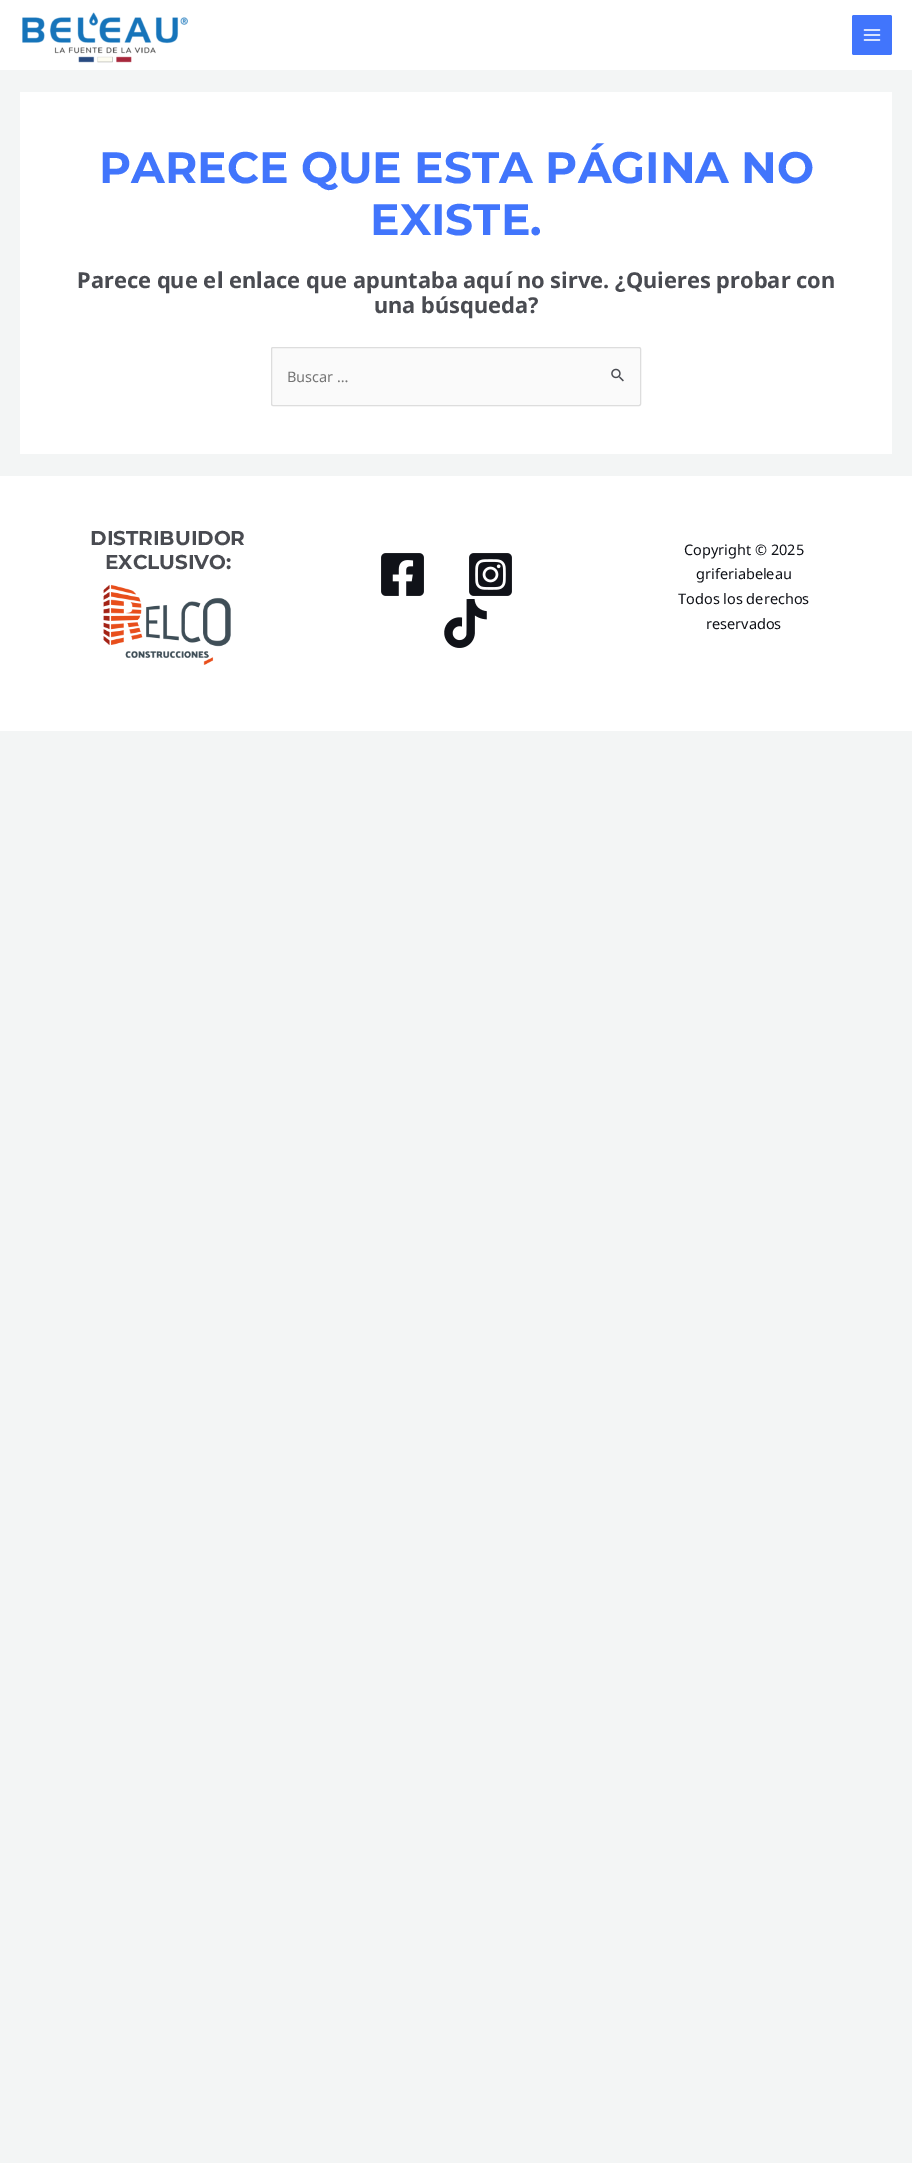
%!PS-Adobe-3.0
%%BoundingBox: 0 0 912 2163
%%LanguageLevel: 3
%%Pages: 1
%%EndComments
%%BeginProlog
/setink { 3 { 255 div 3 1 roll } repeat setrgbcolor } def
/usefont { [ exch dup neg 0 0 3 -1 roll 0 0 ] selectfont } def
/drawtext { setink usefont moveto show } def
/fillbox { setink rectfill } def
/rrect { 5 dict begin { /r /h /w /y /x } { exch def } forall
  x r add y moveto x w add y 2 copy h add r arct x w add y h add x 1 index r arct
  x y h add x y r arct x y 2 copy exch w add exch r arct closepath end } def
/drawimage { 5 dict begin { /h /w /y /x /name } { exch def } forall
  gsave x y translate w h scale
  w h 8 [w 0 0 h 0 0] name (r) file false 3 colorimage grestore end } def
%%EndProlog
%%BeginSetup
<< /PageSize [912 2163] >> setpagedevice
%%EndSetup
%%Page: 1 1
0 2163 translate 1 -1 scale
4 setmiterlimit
0 0 912 2163 243 245 245 fillbox
0 0 912 70 255 255 255 fillbox
(assets/img1.rgb) 22 12 166 51 drawimage
65 117 252 setink
852 15 40 40 2 rrect fill
(assets/img2.rgb) 863 29 18 12 drawimage
20 92 872 362 255 255 255 fillbox
(PARECE QUE ESTA PÁGINA NO) 99 183 /Montserrat-Thin 44 65 117 252 drawtext
(EXISTE.) 370 235 /Montserrat-Thin 44 65 117 252 drawtext
(Parece que el enlace que apuntaba aquí no sirve. ¿Quieres probar con) 77 288 /NotoSans-Bold 21.9 73 75 81 drawtext
(una búsqueda?) 374 313 /NotoSans-Bold 21.9 73 75 81 drawtext
250 250 250 setink
271.5 347.5 369 58 1.5 rrect gsave fill grestore
221 221 221 setink
stroke
(Buscar …) 287 382 /NotoSans-Regular 14.5 117 117 117 drawtext
(assets/img3.rgb) 611 368 13 14 drawimage
0 476 912 255 255 255 255 fillbox
(DISTRIBUIDOR) 90 545 /Montserrat-Thin 20 73 75 81 drawtext
(EXCLUSIVO:) 105 569 /Montserrat-Thin 20 73 75 81 drawtext
(assets/img4.rgb) 103 584 128 81 drawimage
(assets/img5.rgb) 381 553 43 43 drawimage
(assets/img6.rgb) 469 553 43 43 drawimage
(assets/img7.rgb) 444 599 43 49 drawimage
(Copyright © 2025) 684 555 /NotoSans-Regular 14.5 16 18 24 drawtext
(griferiabeleau) 696 579 /NotoSans-Regular 14.5 16 18 24 drawtext
(Todos los derechos) 678 604 /NotoSans-Regular 14.5 16 18 24 drawtext
(reservados) 706 629 /NotoSans-Regular 14.5 16 18 24 drawtext
showpage
%%EOF
